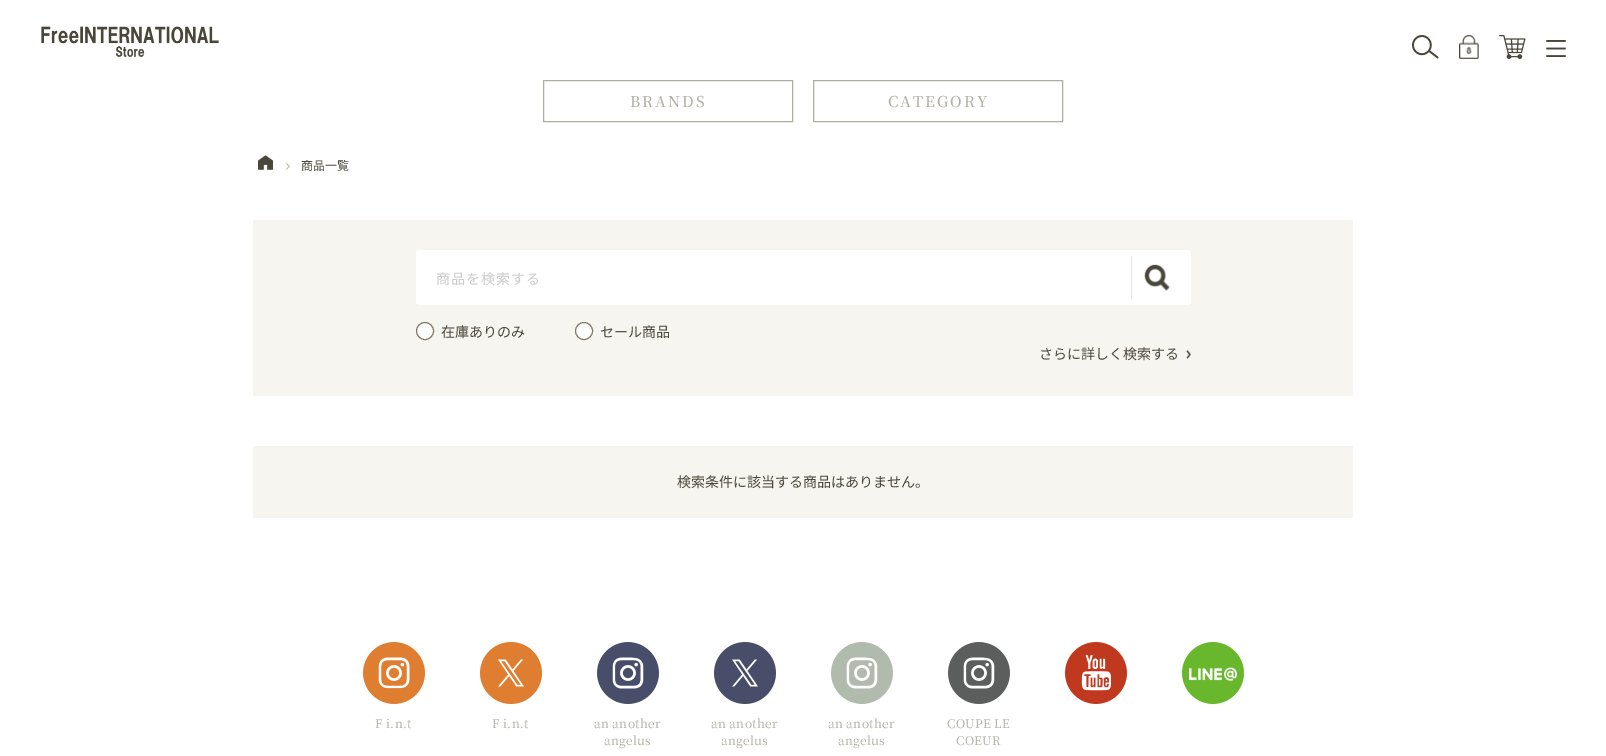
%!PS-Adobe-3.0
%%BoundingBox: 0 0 1606 756
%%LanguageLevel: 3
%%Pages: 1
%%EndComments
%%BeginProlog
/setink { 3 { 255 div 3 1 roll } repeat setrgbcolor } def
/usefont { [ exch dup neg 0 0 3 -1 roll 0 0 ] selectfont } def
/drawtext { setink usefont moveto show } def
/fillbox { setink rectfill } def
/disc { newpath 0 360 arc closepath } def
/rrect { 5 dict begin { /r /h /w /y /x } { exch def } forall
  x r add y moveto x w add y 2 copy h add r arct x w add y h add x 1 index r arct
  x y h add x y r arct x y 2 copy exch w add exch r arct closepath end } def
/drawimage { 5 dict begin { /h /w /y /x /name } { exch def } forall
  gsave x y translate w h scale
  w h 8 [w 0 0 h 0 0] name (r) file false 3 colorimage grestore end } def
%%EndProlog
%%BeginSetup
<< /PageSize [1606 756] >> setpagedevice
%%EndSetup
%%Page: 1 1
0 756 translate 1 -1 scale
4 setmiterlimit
0 0 1606 756 255 255 255 fillbox
(assets/img1.rgb) 41 26 178 31 drawimage
(assets/img2.rgb) 1412 35 27 24 drawimage
(assets/img3.rgb) 1459 35 20 24 drawimage
(assets/img4.rgb) 1499 35 27 24 drawimage
(assets/img5.rgb) 1546 40 20 17 drawimage
175 173 159 setink
543.5 80.5 249 41 rectstroke
/NotoSerifJP-Medium 15 usefont
630 107 moveto 2 0 (BRANDS) ashow
813.5 80.5 249 41 rectstroke
888 107 moveto 2 0 (CATEGORY) ashow
(assets/img6.rgb) 258 155 15 15 drawimage
(assets/img7.rgb) 286 163 4 7 drawimage
(商品一覧) 301 170 /NotoSansJP-Regular 12 75 70 58 drawtext
253 220 1100 176 247 245 240 fillbox
255 255 255 setink
416 250 775 55 3 rrect fill
/NotoSansJP-Regular 14 usefont
202 202 202 setink
436 284 moveto 1 0 (商品を検索する) ashow
(assets/img8.rgb) 1144 264 26 27 drawimage
1131 256 1 43 230 230 230 fillbox
255 255 255 setink
425 331 8.5 disc gsave fill grestore
131 121 96 setink
stroke
(在庫ありのみ) 441 337 /NotoSansJP-Regular 14 75 70 58 drawtext
255 255 255 setink
584 331 8.5 disc gsave fill grestore
131 121 96 setink
stroke
(セール商品) 600 337 /NotoSansJP-Regular 14 75 70 58 drawtext
(assets/img9.rgb) 1186 350 5 9 drawimage
(さらに詳しく検索する) 1039 359 /NotoSansJP-Regular 14 75 70 58 drawtext
253 446 1100 72 247 245 240 fillbox
(検索条件に該当する商品はありません。) 677 487 /NotoSansJP-Regular 14 75 70 58 drawtext
(assets/img10.rgb) 1065 642 62 62 drawimage
(assets/img11.rgb) 1182 642 62 62 drawimage
(assets/img12.rgb) 363 642 62 62 drawimage
/NotoSerifJP-Regular 12 usefont
175 173 159 setink
375 728 moveto 0.25 0 (F i.n.t) ashow
(assets/img13.rgb) 480 642 62 62 drawimage
492 728 moveto 0.25 0 (F i.n.t) ashow
(assets/img14.rgb) 597 642 62 62 drawimage
594 728 moveto 0.25 0 (an another) ashow
604 745 moveto 0.25 0 (angelus) ashow
(assets/img15.rgb) 714 642 62 62 drawimage
711 728 moveto 0.25 0 (an another) ashow
721 745 moveto 0.25 0 (angelus) ashow
(assets/img16.rgb) 831 642 62 62 drawimage
828 728 moveto 0.25 0 (an another) ashow
838 745 moveto 0.25 0 (angelus) ashow
(assets/img17.rgb) 948 642 62 62 drawimage
947 728 moveto 0.25 0 (COUPE LE) ashow
956 745 moveto 0.25 0 (COEUR) ashow
showpage
%%EOF
